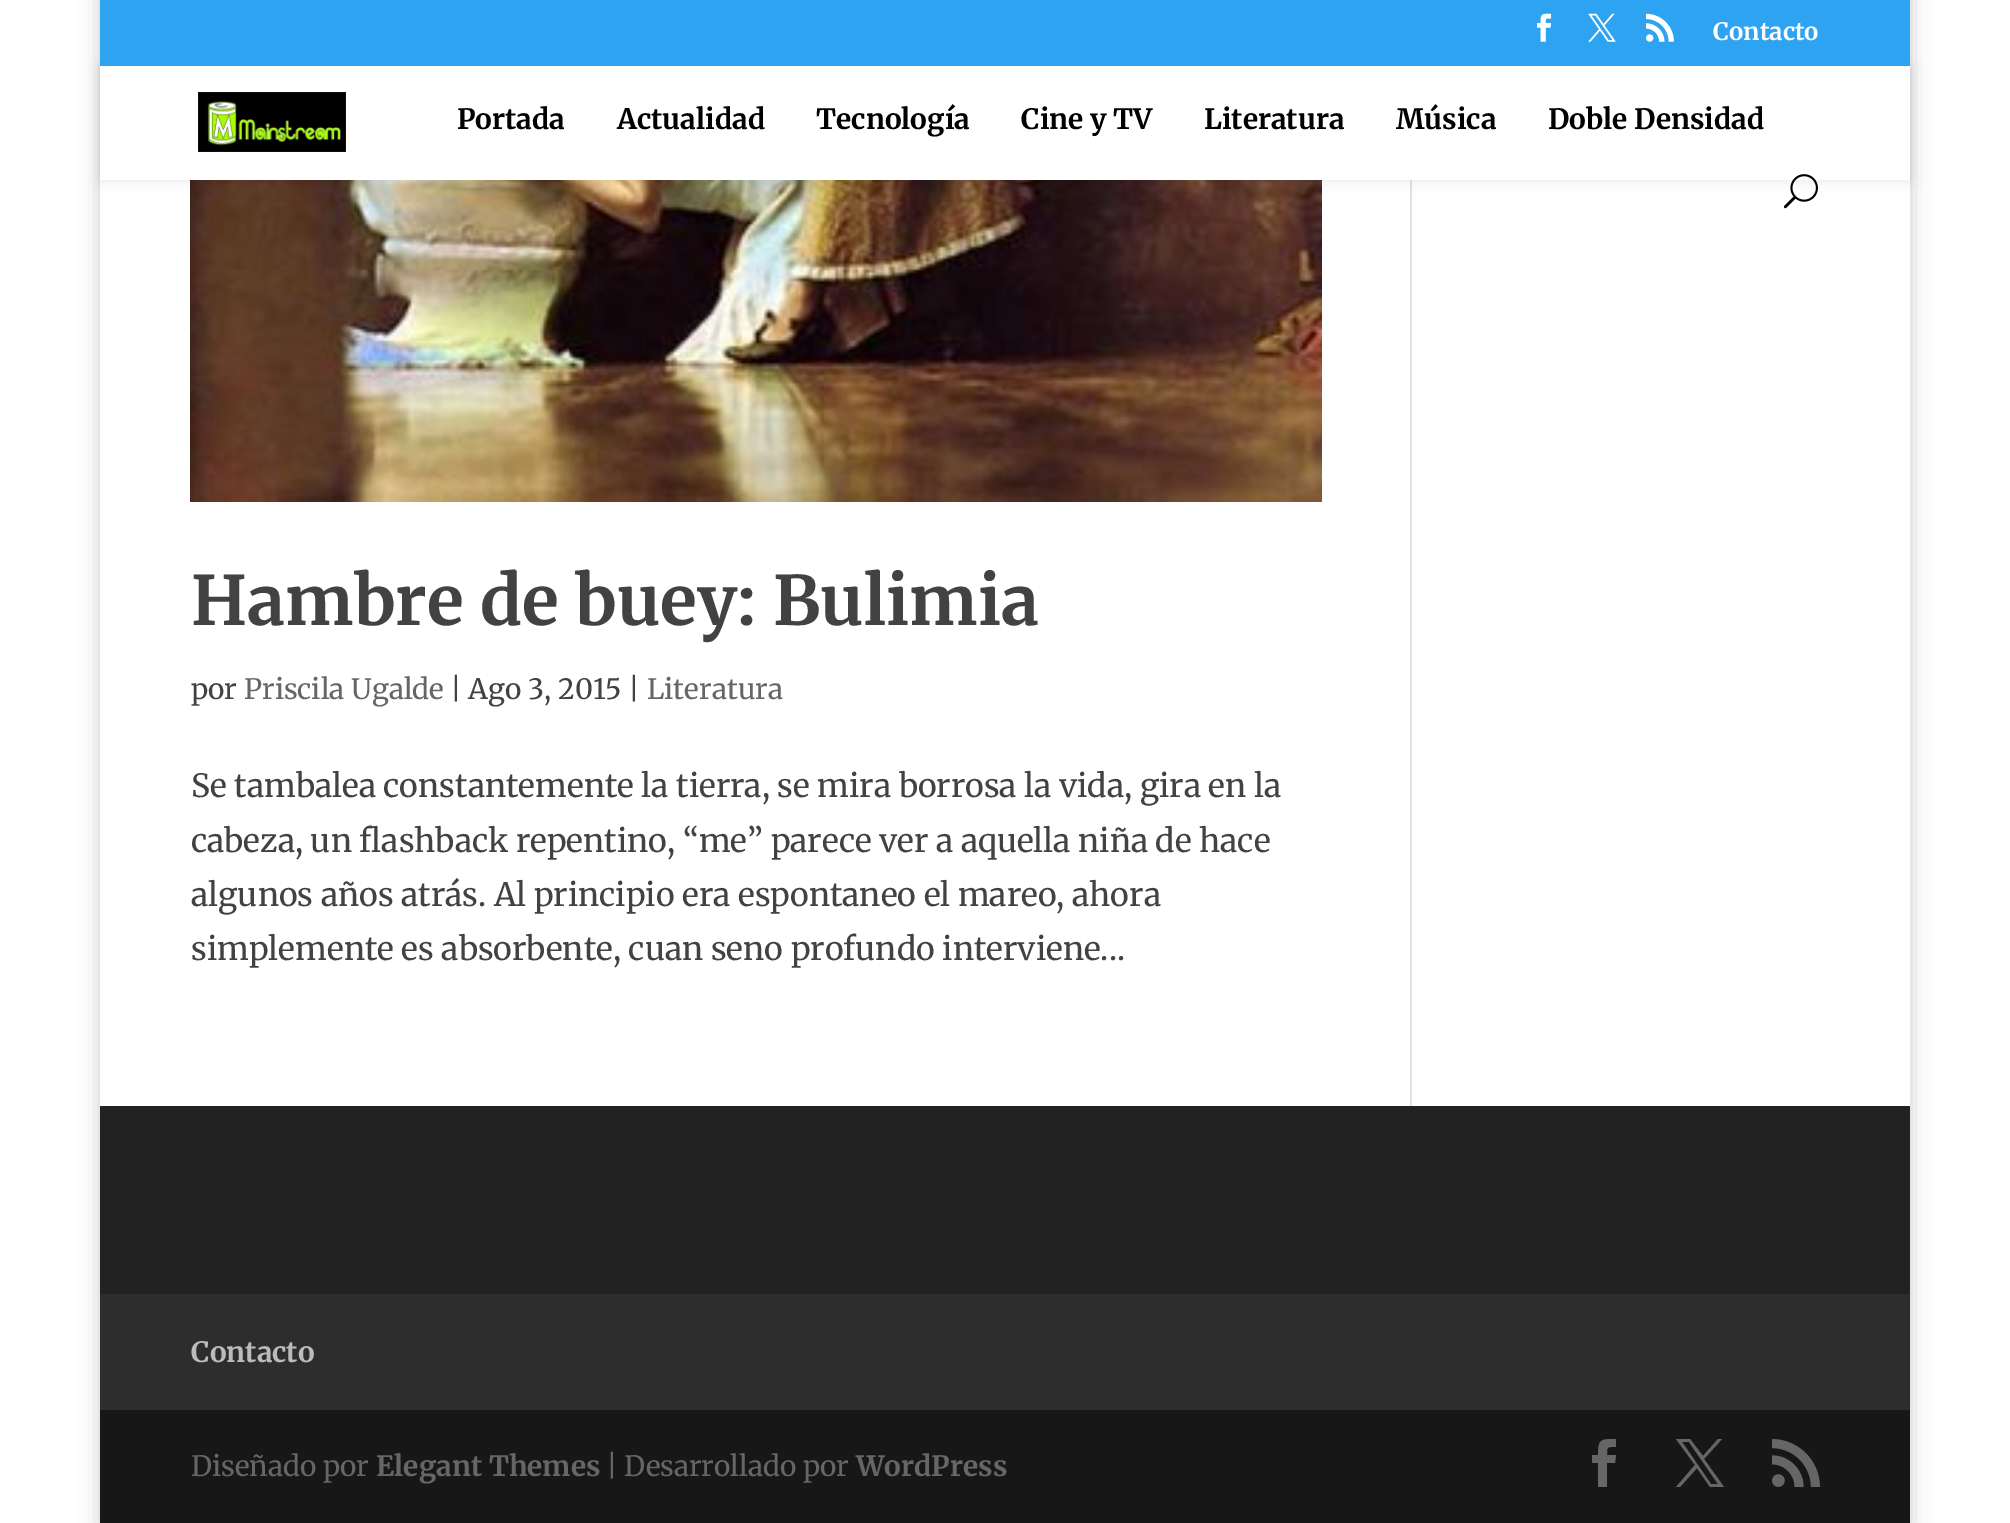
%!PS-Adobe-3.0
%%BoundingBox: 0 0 2010 1523
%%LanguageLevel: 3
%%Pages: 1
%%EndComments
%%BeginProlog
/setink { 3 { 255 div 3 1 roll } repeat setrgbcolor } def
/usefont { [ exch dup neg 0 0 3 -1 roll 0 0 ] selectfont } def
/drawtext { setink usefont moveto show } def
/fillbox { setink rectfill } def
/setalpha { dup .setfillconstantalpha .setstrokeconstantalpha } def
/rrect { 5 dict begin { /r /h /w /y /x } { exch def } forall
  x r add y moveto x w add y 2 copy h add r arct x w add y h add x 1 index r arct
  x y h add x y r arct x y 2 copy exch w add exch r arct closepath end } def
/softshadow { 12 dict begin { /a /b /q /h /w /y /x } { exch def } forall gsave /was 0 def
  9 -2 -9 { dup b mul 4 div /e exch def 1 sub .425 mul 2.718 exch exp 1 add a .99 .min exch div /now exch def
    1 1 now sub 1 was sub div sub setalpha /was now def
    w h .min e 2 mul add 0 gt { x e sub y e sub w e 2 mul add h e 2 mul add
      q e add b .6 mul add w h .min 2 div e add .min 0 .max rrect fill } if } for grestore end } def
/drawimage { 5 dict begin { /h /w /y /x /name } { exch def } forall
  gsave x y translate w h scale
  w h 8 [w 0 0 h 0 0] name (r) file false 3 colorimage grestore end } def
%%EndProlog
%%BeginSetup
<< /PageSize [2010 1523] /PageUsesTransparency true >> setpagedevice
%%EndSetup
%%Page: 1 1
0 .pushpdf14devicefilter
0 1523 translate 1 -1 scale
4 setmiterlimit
0 0 2010 1523 255 255 255 fillbox
gsave
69 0 moveto 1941 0 lineto 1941 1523 lineto 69 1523 lineto closepath 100 -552 moveto 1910 -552 lineto 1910 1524 lineto 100 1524 lineto closepath eoclip newpath
0 0 0 setink
100 -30 1810 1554 0 10 0.2 softshadow
grestore
(assets/img6.rgb) 190 180 1132 322 drawimage
1410 180 2 926 226 226 226 fillbox
0 0 0 setink
100 66 1810 114 0 7 0.1 softshadow
100 0 1810 66 46 163 242 fillbox
(assets/img1.rgb) 1537 13 15 29 drawimage
(assets/img2.rgb) 1588 13 28 29 drawimage
(assets/img3.rgb) 1646 13 28 29 drawimage
(Contacto) 1713 40 /Merriweather-Light 24 255 255 255 drawtext
100 66 1810 114 255 255 255 fillbox
(assets/img4.rgb) 198 92 148 60 drawimage
(Portada) 457 129 /Merriweather-Light 28 0 0 0 drawtext
(Actualidad) 617 129 /Merriweather-Light 28 0 0 0 drawtext
(Tecnología) 816 129 /Merriweather-Light 28 0 0 0 drawtext
(Cine y TV) 1021 129 /Merriweather-Light 28 0 0 0 drawtext
(Literatura) 1204 129 /Merriweather-Light 28 0 0 0 drawtext
(Música) 1396 129 /Merriweather-Light 28 0 0 0 drawtext
(Doble Densidad) 1548 129 /Merriweather-Light 28 0 0 0 drawtext
(assets/img5.rgb) 1783 174 35 35 drawimage
(Hambre de buey: Bulimia) 191 625 /Merriweather-Light 68 66 66 66 drawtext
(por) 191 699 /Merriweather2-Light 28 66 66 66 drawtext
(Priscila Ugalde) 244 699 /Merriweather2-Light 28 102 102 102 drawtext
(| Ago 3, 2015 |) 450 699 /Merriweather2-Light 28 66 66 66 drawtext
(Literatura) 647 699 /Merriweather2-Light 28 102 102 102 drawtext
(Se tambalea constantemente la tierra, se mira borrosa la vida, gira en la) 191 797 /Merriweather2-Light 32 66 66 66 drawtext
(cabeza, un flashback repentino, “me” parece ver a aquella niña de hace) 191 852 /Merriweather2-Light 32 66 66 66 drawtext
(algunos años atrás. Al principio era espontaneo el mareo, ahora) 191 906 /Merriweather2-Light 32 66 66 66 drawtext
(simplemente es absorbente, cuan seno profundo interviene...) 191 960 /Merriweather2-Light 32 66 66 66 drawtext
100 1106 1810 188 34 34 34 fillbox
100 1294 1810 116 45 45 45 fillbox
(Contacto) 191 1362 /Merriweather-Light 28 187 187 187 drawtext
100 1410 1810 113 23 23 23 fillbox
(Diseñado por) 191 1476 /Merriweather2-Light 28 102 102 102 drawtext
(Elegant Themes) 376 1476 /Merriweather-Light 28 102 102 102 drawtext
(| Desarrollado por) 606 1476 /Merriweather2-Light 28 102 102 102 drawtext
(WordPress) 856 1476 /Merriweather-Light 28 102 102 102 drawtext
1598 1487 moveto 1607 1487 lineto 1607 1463 lineto 1615 1463 lineto 1616 1455 lineto 1607 1455 lineto 1607 1446 1607 1447 1616 1447 curveto 1616 1439 lineto 1601 1439 1598 1439 1598 1455 curveto 1592 1455 lineto 1592 1463 lineto 1598 1463 lineto closepath fill
1676 1439 moveto 1695 1465 lineto 1676 1487 lineto 1680 1487 lineto 1697 1468 lineto 1710 1487 lineto 1724 1487 lineto 1704 1459 lineto 1722 1439 lineto 1718 1439 lineto 1703 1456 lineto 1690 1439 lineto closepath 1682 1442 moveto 1689 1442 lineto 1718 1484 lineto 1711 1484 lineto closepath fill
(assets/img7.rgb) 1772 1439 48 48 drawimage
.poppdf14devicefilter showpage
%%EOF
